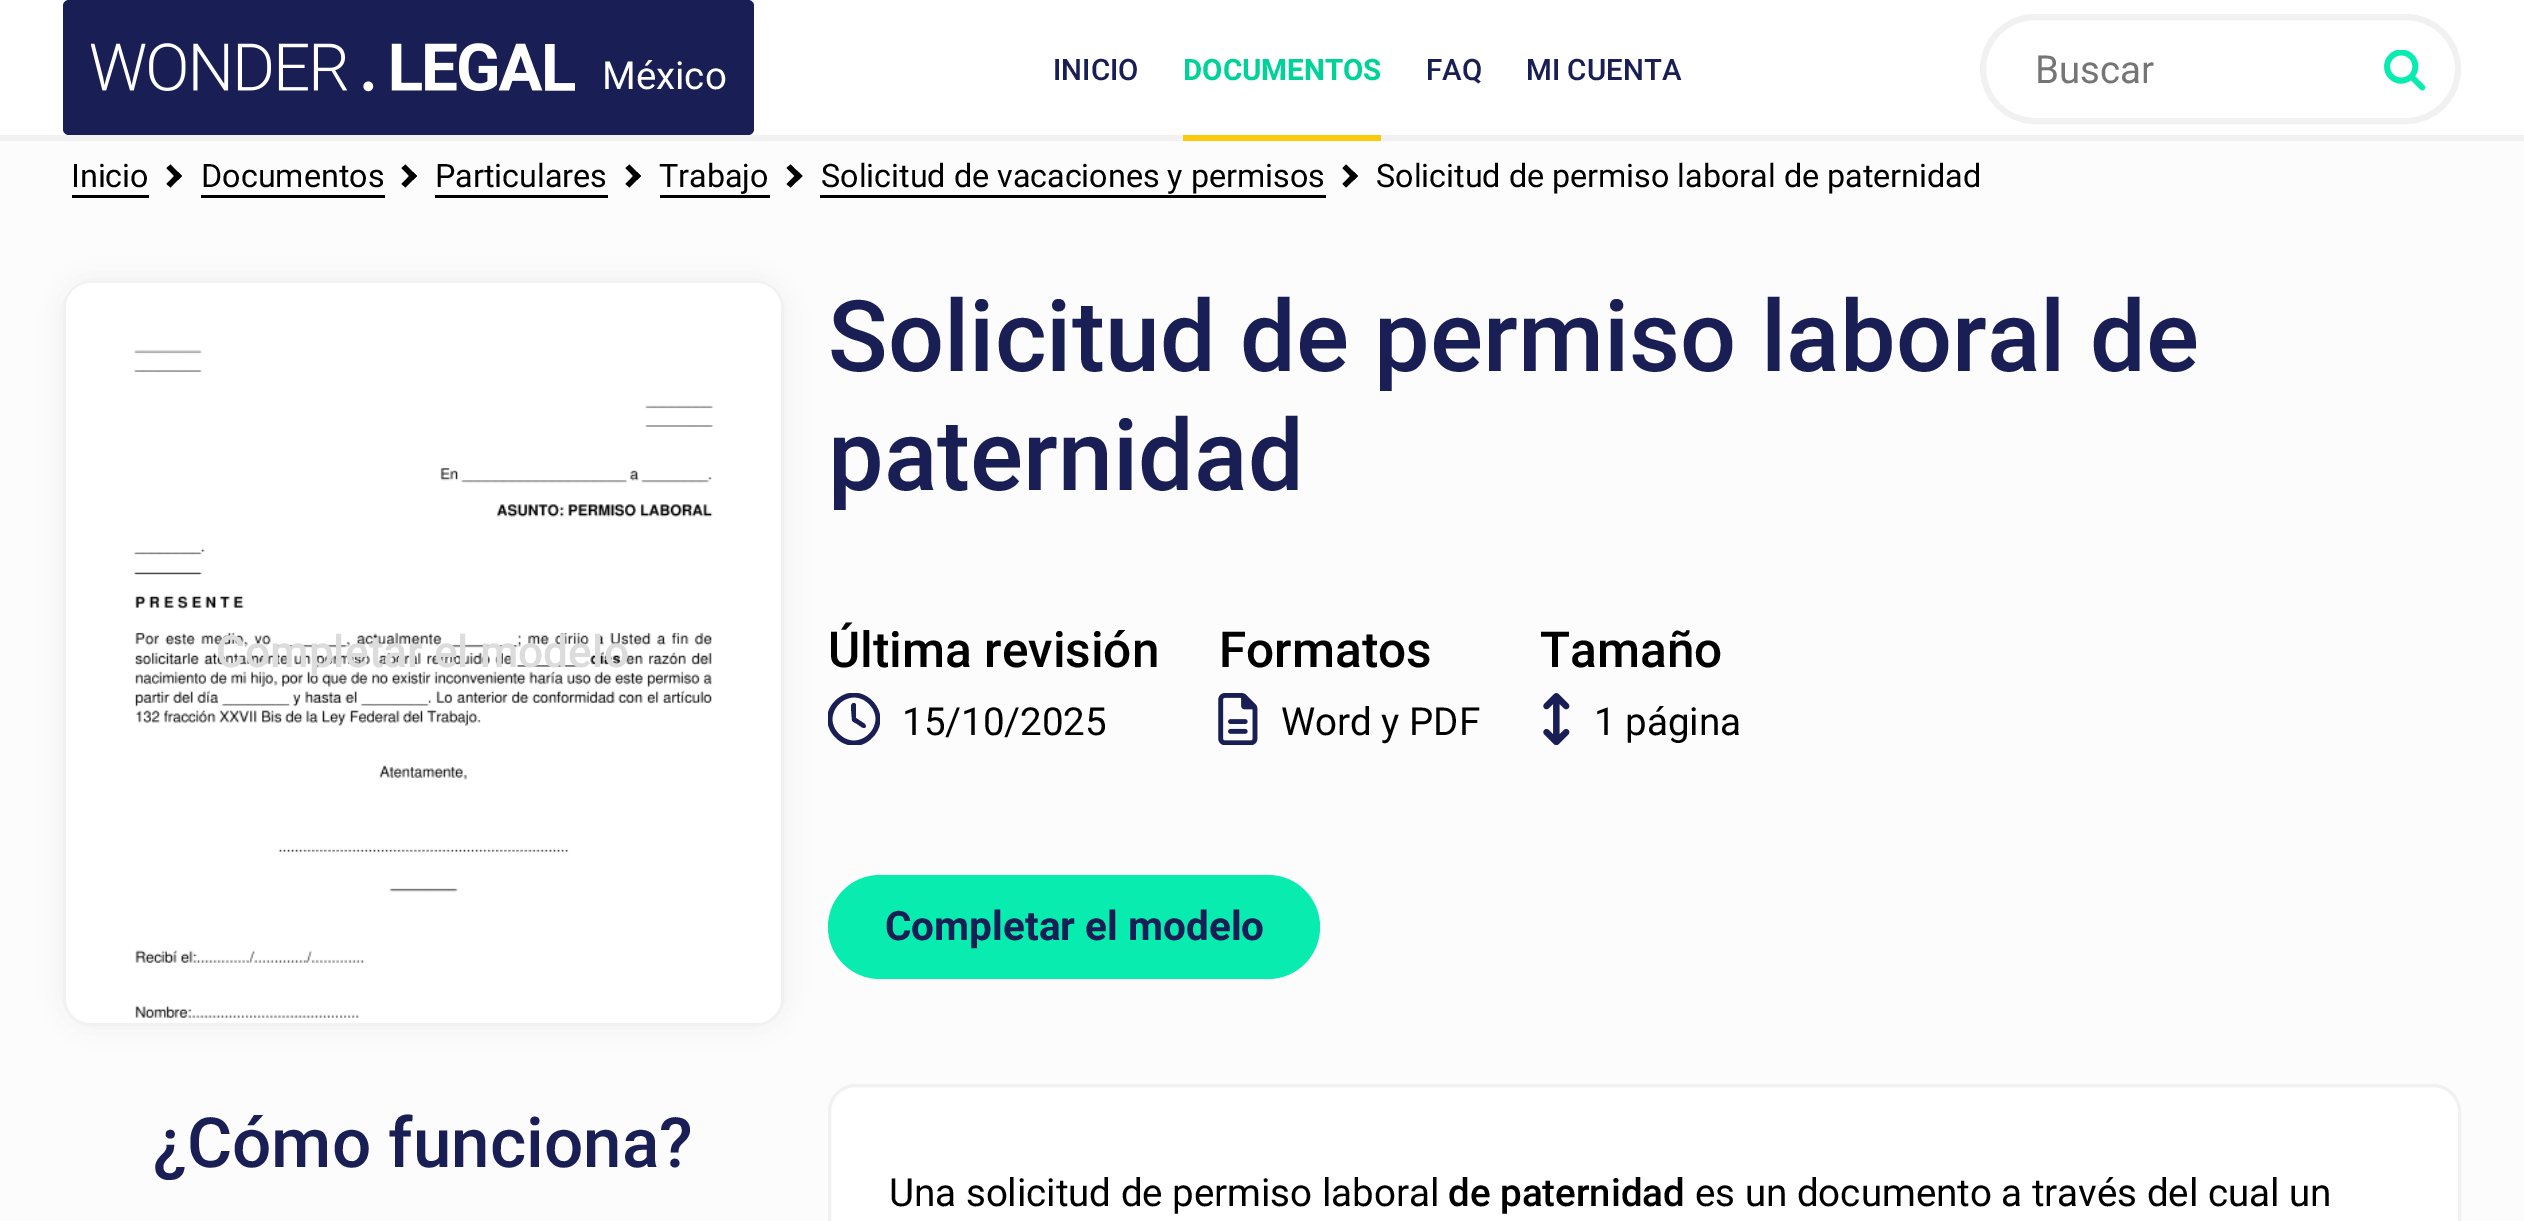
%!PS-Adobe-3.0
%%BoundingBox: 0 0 2524 1221
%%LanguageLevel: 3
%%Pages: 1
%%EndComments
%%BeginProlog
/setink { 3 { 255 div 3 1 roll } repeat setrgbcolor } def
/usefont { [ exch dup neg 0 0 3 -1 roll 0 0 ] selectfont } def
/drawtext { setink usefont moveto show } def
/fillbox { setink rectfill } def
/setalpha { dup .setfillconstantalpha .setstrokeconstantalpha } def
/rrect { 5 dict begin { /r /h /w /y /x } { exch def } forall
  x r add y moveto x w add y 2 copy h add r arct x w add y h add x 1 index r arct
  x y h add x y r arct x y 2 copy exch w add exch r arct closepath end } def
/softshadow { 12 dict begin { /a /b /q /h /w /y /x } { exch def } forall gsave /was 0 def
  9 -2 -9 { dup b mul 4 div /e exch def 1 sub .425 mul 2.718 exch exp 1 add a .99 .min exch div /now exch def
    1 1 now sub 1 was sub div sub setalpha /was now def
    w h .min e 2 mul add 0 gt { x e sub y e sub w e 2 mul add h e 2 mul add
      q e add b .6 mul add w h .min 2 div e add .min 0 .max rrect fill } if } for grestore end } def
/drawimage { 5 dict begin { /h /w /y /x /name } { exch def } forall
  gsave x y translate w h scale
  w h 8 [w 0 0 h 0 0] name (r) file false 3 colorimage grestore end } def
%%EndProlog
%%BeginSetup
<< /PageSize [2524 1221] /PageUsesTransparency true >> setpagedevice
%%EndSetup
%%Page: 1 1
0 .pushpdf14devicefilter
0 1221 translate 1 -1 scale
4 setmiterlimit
0 0 2524 1221 252 252 252 fillbox
0 0 2524 135 255 255 255 fillbox
0 135 2524 6 241 241 241 fillbox
25 30 85 setink
63 0 691 135 6 rrect fill
(assets/img1.rgb) 91 43 484 49 drawimage
(México) 602 89 /Roboto-Regular 38.5 255 255 255 drawtext
(INICIO) 1053 80 /Roboto-Medium 29.5 25 30 85 drawtext
1183 135 198 6 252 201 13 fillbox
(DOCUMENTOS) 1183 80 /Roboto-Bold 29.5 1 210 154 drawtext
(FAQ) 1426 80 /Roboto-Medium 29.5 25 30 85 drawtext
(MI CUENTA) 1526 80 /Roboto-Medium 29.5 25 30 85 drawtext
241 241 241 setink
6 setlinewidth
1983 17 475 104 52 rrect stroke
(Buscar) 2035 83 /Roboto-Regular 38.5 117 117 117 drawtext
(assets/img2.rgb) 2384 50 42 41 drawimage
72 195 77 3 0 0 0 fillbox
(Inicio) 71 187 /Roboto-Regular 32.3 0 0 0 drawtext
166.5 168 moveto 170.5 164.5 lineto 182 176 lineto 178 180 lineto closepath fill
166.5 184 moveto 178 172 lineto 182 176 lineto 170.5 187.5 lineto closepath fill
201 195 184 3 0 0 0 fillbox
(Documentos) 201 187 /Roboto-Regular 32.3 0 0 0 drawtext
401.5 168 moveto 405.5 164.5 lineto 417 176 lineto 413 180 lineto closepath fill
401.5 184 moveto 413 172 lineto 417 176 lineto 405.5 187.5 lineto closepath fill
435 195 173 3 0 0 0 fillbox
(Particulares) 435 187 /Roboto-Regular 32.3 0 0 0 drawtext
625.5 168 moveto 629.5 164.5 lineto 641 176 lineto 637 180 lineto closepath fill
625.5 184 moveto 637 172 lineto 641 176 lineto 629.5 187.5 lineto closepath fill
660 195 110 3 0 0 0 fillbox
(Trabajo) 659 187 /Roboto-Regular 32.3 0 0 0 drawtext
786.5 168 moveto 790.5 164.5 lineto 802.5 176 lineto 798.5 180 lineto closepath fill
786.5 184 moveto 798.5 172 lineto 802.5 176 lineto 790.5 187.5 lineto closepath fill
820 195 506 3 0 0 0 fillbox
(Solicitud de vacaciones y permisos) 821 187 /Roboto-Regular 32.3 0 0 0 drawtext
1342.5 168 moveto 1346 164.5 lineto 1358 176 lineto 1354 180 lineto closepath fill
1342.5 184 moveto 1354 172 lineto 1358 176 lineto 1346 187.5 lineto closepath fill
(Solicitud de permiso laboral de paternidad) 1376 187 /Roboto-Regular 32.3 0 0 0 drawtext
63 281 721 745 28 14 0.05 softshadow
241 241 241 setink
3 setlinewidth
64.5 282.5 718 742 26.5 rrect stroke
255 255 255 setink
66 283 715 740 25 rrect fill
(assets/img3.rgb) 134 350 579 669 drawimage
(Completar el modelo) 216 667 /Roboto-Medium 44.25 220 220 220 drawtext
(¿Cómo funciona?) 153 1167 /Roboto-Medium 69.25 25 30 85 drawtext
(Solicitud de permiso laboral de) 828 371 /Roboto-Medium 99 25 30 85 drawtext
(paternidad) 828 490 /Roboto-Medium 99 25 30 85 drawtext
(Última revisión) 828 667 /Roboto-Medium 49.5 0 0 0 drawtext
gsave
828 693 52 52 rectclip
25 30 85 setink
835 701 moveto 860 676 897 713 872 738 curveto 848 762 811 725 835 701 curveto closepath 869 704 moveto 849 684 819 714 839 734 curveto 859 754 889 724 869 704 curveto closepath 854 703 moveto 855 703 856 704 856 705 curveto 856 718 lineto 865 724 lineto 866 726 lineto 865 731 859 725 857 724 curveto 856 723 852 722 852 720 curveto 851 708 lineto 851 706 851 703 854 703 curveto closepath eofill
grestore
(15/10/2025) 902 735 /Roboto-Regular 38.5 0 0 0 drawtext
(Formatos) 1219 667 /Roboto-Medium 49.5 0 0 0 drawtext
(assets/img4.rgb) 1218 693 40 52 drawimage
(Word y PDF) 1281 735 /Roboto-Regular 38.5 0 0 0 drawtext
(Tamaño) 1540 667 /Roboto-Medium 49.5 0 0 0 drawtext
(assets/img5.rgb) 1543 693 27 52 drawimage
(1 página) 1594 735 /Roboto-Regular 38.5 0 0 0 drawtext
8 236 175 setink
828 875 492 104 52 rrect fill
(Completar el modelo) 885 940 /Roboto-Bold 40.5 25 30 85 drawtext
255 255 255 setink
829.5 1085.5 1630 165 26.5 rrect gsave fill grestore
241 241 241 setink
stroke
(Una solicitud de permiso laboral) 889 1206 /Roboto-Regular 38.5 0 0 0 drawtext
(de paternidad) 1448 1206 /Roboto-Medium 38.5 0 0 0 drawtext
(es un documento a través del cual un) 1695 1206 /Roboto-Regular 38.5 0 0 0 drawtext
.poppdf14devicefilter showpage
%%EOF
